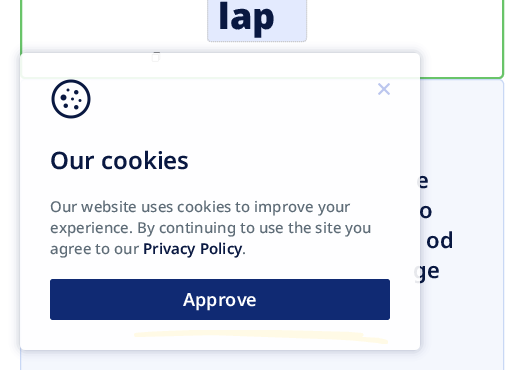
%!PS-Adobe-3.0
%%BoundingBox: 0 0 524 370
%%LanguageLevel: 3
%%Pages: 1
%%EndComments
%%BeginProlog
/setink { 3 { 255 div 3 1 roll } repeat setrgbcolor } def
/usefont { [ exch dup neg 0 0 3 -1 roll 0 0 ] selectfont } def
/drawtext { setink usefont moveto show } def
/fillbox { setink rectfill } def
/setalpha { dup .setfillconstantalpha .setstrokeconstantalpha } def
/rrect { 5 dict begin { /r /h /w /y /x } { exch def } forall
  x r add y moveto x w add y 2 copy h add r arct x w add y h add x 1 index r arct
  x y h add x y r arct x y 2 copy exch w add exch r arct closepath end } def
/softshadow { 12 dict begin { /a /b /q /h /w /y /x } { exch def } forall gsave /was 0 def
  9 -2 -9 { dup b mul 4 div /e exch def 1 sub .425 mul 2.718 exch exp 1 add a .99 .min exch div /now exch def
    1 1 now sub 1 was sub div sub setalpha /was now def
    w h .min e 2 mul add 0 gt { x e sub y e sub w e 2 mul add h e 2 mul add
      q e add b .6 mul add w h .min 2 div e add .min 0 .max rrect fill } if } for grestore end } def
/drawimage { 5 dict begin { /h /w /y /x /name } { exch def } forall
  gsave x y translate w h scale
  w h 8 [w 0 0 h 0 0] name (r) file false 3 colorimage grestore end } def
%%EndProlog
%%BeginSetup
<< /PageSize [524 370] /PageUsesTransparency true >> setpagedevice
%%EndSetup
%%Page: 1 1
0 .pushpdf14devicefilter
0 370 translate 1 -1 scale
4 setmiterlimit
0 0 524 370 255 255 255 fillbox
105 196 105 setink
2 setlinewidth
21 -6 482 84 4 rrect stroke
227 234 254 setink
207 -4 100 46 4 rrect fill
204 204 204 setink
1 setlinewidth
[1 1] 0 setdash
211 -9.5 moveto 303 -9.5 lineto 305 -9.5 306.5 -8 306.5 -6 curveto 306.5 38 lineto 306.5 40 305 41.5 303 41.5 curveto 211 41.5 lineto 209 41.5 207.5 40 207.5 38 curveto 207.5 -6 lineto 207.5 -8 209 -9.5 211 -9.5 curveto closepath stroke
(lap) 218 29 /NotoSans-Black 36 9 24 65 drawtext
(assets/img1.rgb) 151 52 10 10 drawimage
244 247 253 setink
20.5 79.5 483 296 4.5 rrect gsave fill grestore
201 216 245 setink
[] 0 setdash
stroke
(e) 416 188 /NotoSans-SemiBold 22 9 24 65 drawtext
(o) 419 218 /NotoSans-SemiBold 22 9 24 65 drawtext
(od) 426 248 /NotoSans-SemiBold 22 9 24 65 drawtext
(ge) 413 278 /NotoSans-SemiBold 22 9 24 65 drawtext
gsave
134 330 254 14 rectclip
255 208 0 setink
136 337 moveto 212 335 lineto 296 338 lineto 320 339 344 339 368 342 curveto 378 343 lineto 380 343 386 346 388 343 curveto 390 339 380 339 379 338 curveto 362 337 lineto 363 336 364 335 363 334 curveto 363 333 362 333 361 333 curveto 349 332 lineto 313 331 lineto 274 330 234 329 194 330 curveto 175 331 155 331 136 333 curveto 133 333 134 337 136 337 curveto eofill
grestore
gsave
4 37 moveto 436 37 lineto 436 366 lineto 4 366 lineto closepath 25 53 moveto 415 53 lineto 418 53 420 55 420 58 curveto 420 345 lineto 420 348 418 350 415 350 curveto 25 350 lineto 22 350 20 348 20 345 curveto 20 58 lineto 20 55 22 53 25 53 curveto closepath eoclip newpath
20 53 400 297 5 5 0.3 softshadow
grestore
0.9 setalpha
255 255 255 setink
20 53 400 297 5 rrect fill
1 setalpha
(assets/img2.rgb) 51 79 40 40 drawimage
(assets/img3.rgb) 378 83 12 12 drawimage
(Our cookies) 50 169 /NotoSans-SemiBold 24 9 24 65 drawtext
(Our website uses cookies to improve your) 50 212 /NotoSans-Medium 15 94 108 119 drawtext
(experience. By continuing to use the site you) 50 233 /NotoSans-Medium 15 94 108 119 drawtext
(agree to our) 50 254 /NotoSans-Medium 15 94 108 119 drawtext
(Privacy Policy) 143 254 /NotoSans-SemiBold 15 9 24 65 drawtext
(.) 242 254 /NotoSans-Medium 15 94 108 119 drawtext
16 42 115 setink
50 279 340 41 3 rrect fill
(Approve) 183 306 /NotoSans-SemiBold 18 255 255 255 drawtext
.poppdf14devicefilter showpage
%%EOF
